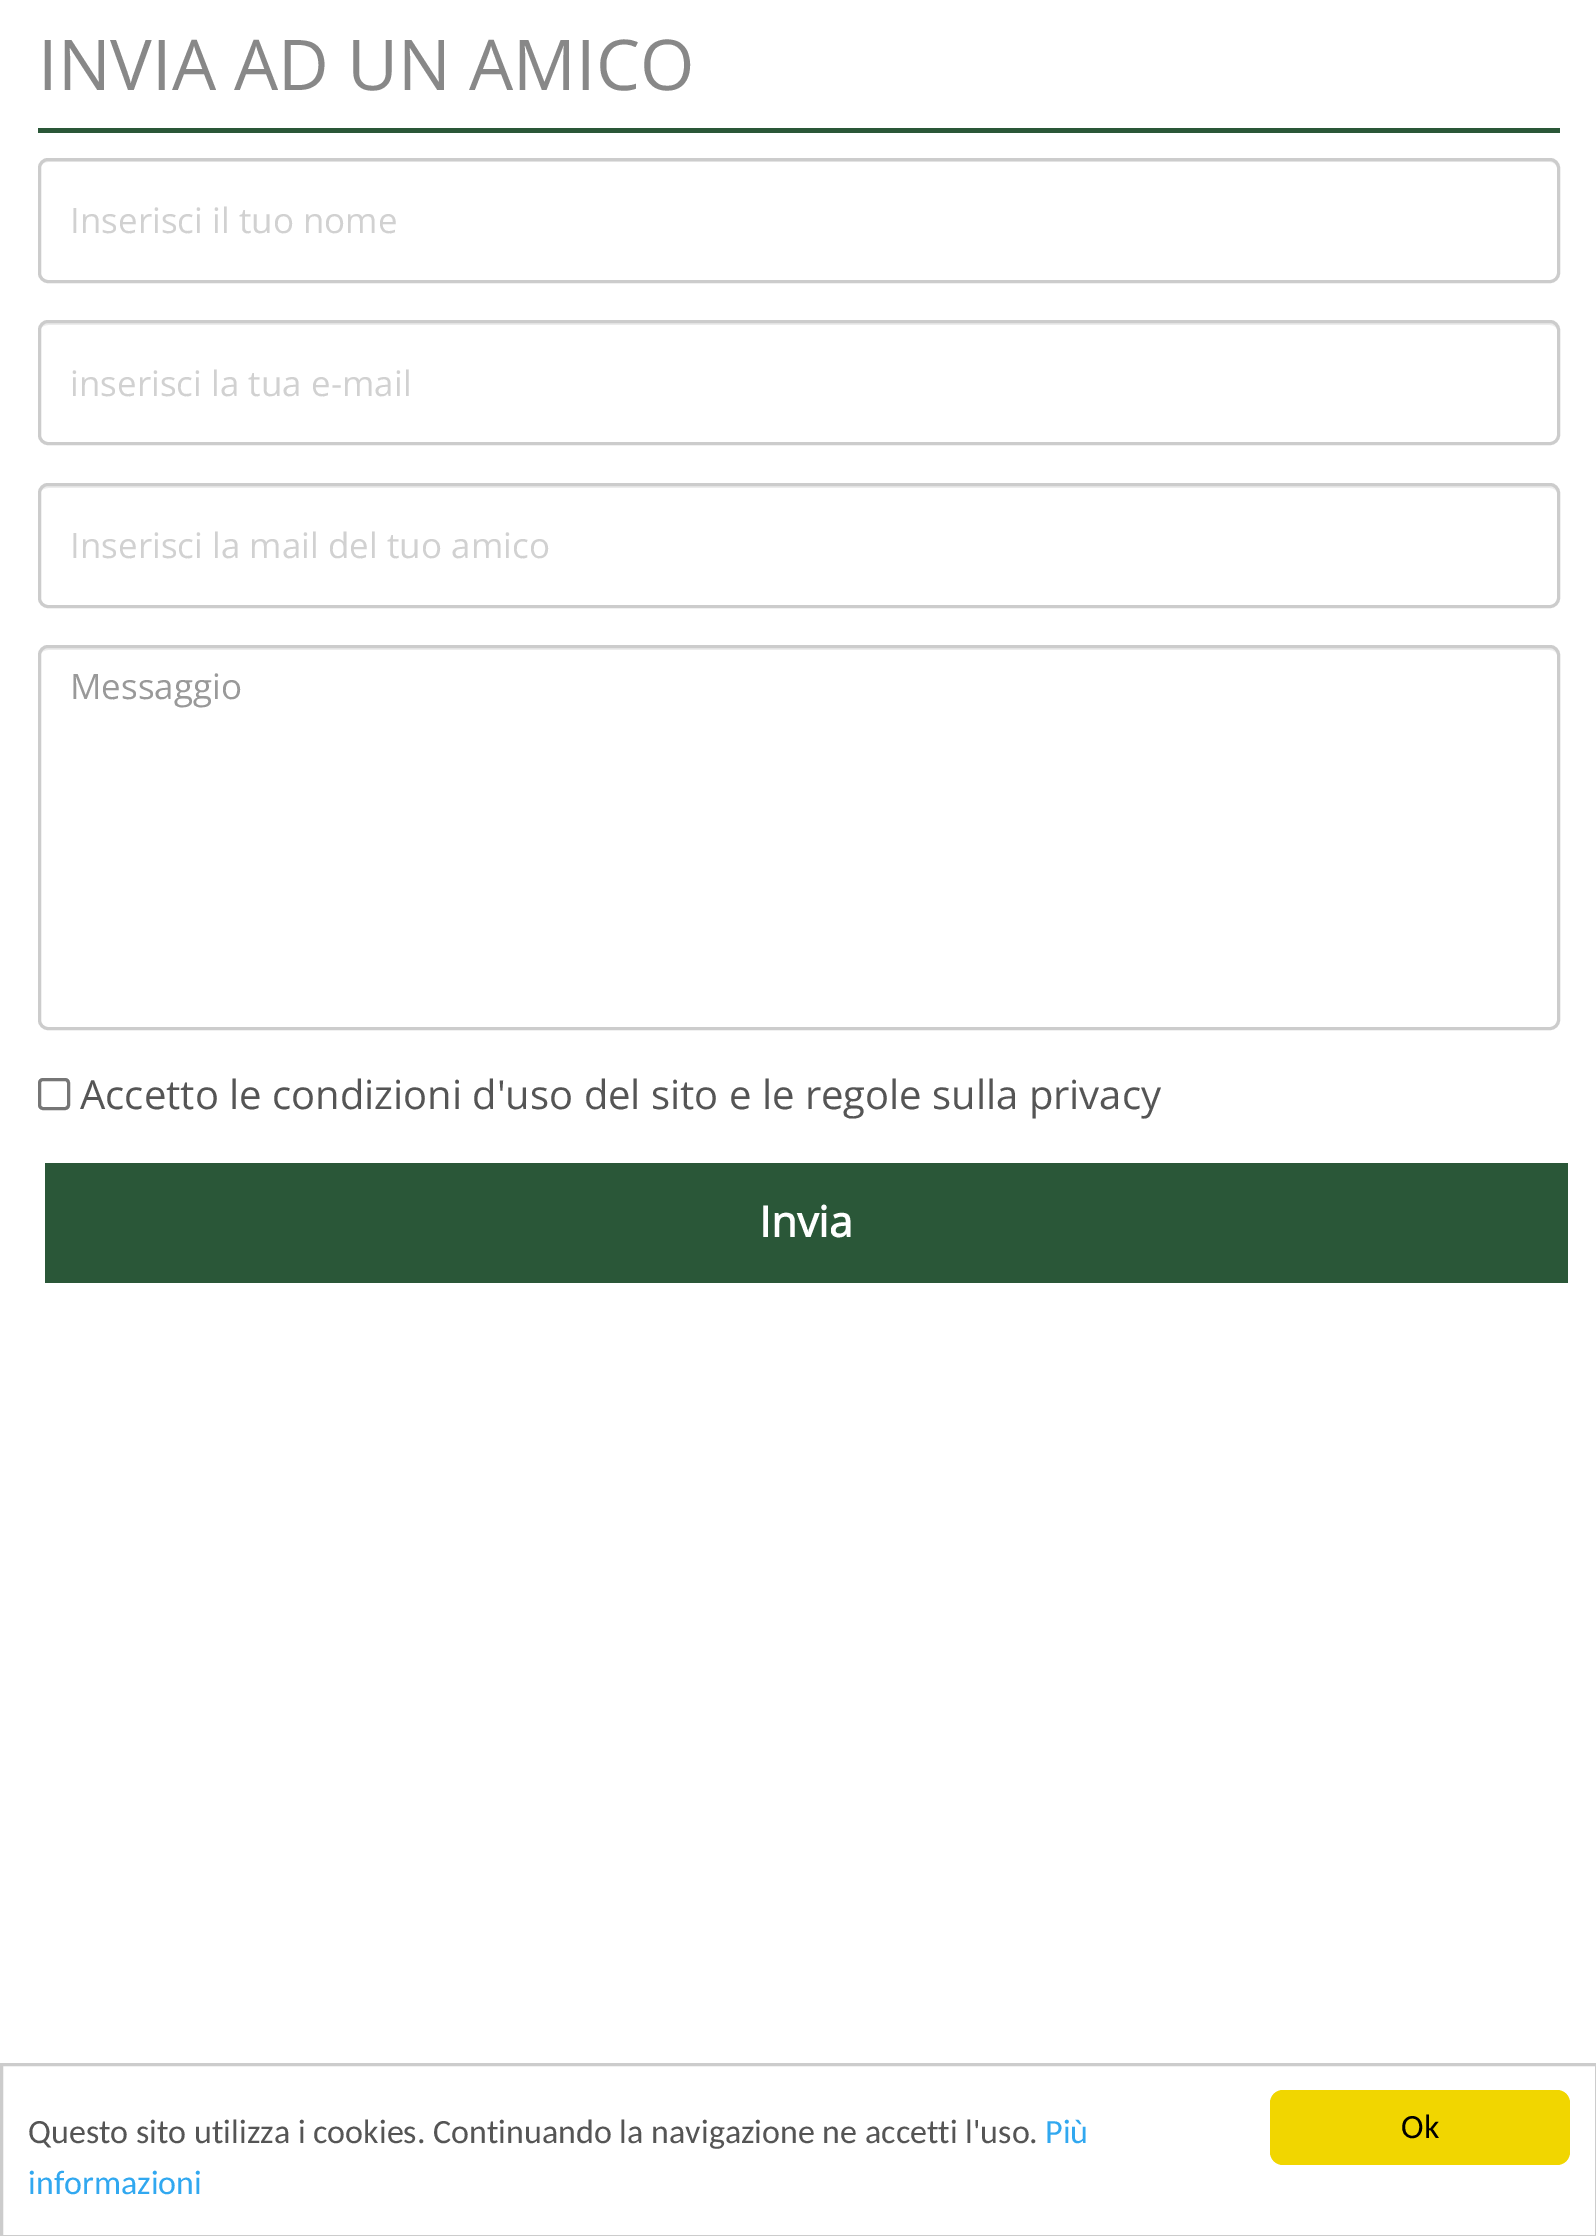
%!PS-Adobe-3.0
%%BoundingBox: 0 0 1596 2236
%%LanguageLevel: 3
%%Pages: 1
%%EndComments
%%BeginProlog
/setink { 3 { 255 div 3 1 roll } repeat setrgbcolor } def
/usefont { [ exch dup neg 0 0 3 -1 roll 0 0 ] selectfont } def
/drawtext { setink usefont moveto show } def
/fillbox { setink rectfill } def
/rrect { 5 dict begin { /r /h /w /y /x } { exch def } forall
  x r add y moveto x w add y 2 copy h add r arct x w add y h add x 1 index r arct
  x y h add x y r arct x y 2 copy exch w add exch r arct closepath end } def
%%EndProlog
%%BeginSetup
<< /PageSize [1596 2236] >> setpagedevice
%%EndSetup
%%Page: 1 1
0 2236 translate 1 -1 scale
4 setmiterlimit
0 0 1596 2236 255 255 255 fillbox
38 128 1522 5 42 87 56 fillbox
(INVIA AD UN AMICO) 38 90 /OpenSans-Regular 70 136 136 136 drawtext
236 236 236 setink
48 162 moveto 1550 162 lineto 1554 162 1558 166 1558 170 curveto 1558 168 lineto 1558 164 1554 160 1550 160 curveto 48 160 lineto 44 160 40 164 40 168 curveto 40 170 lineto 40 166 43 162 48 162 curveto closepath fill
204 204 204 setink
3 setlinewidth
39.5 159.5 1519 122 8.5 rrect stroke
(Inserisci il tuo nome) 70 233 /OpenSans-Regular 35 209 209 209 drawtext
236 236 236 setink
48 325 moveto 1550 325 lineto 1554 325 1558 328 1558 332 curveto 1558 327 1555 323 1550 323 curveto 48 323 lineto 43 323 40 327 40 332 curveto 40 328 43 325 48 325 curveto closepath fill
204 204 204 setink
39.5 321.5 1519 122 8.5 rrect stroke
(inserisci la tua e-mail) 70 396 /OpenSans-Regular 35 209 209 209 drawtext
236 236 236 setink
48 488 moveto 1550 488 lineto 1554 488 1558 491 1558 495 curveto 1558 493 lineto 1558 489 1554 485 1550 485 curveto 48 485 lineto 44 485 40 489 40 493 curveto 40 495 lineto 40 491 43 488 48 488 curveto closepath fill
204 204 204 setink
39.5 484.5 1519 122 8.5 rrect stroke
(Inserisci la mail del tuo amico) 70 558 /OpenSans-Regular 35 209 209 209 drawtext
236 236 236 setink
48 650 moveto 1550 650 lineto 1554 650 1558 653 1558 658 curveto 1558 656 lineto 1558 652 1554 648 1550 648 curveto 48 648 lineto 44 648 40 652 40 656 curveto 40 658 lineto 40 653 43 650 48 650 curveto closepath fill
204 204 204 setink
39.5 646.5 1519 382 8.5 rrect stroke
(Messaggio) 70 699 /OpenSans-Regular 35 153 153 153 drawtext
118 118 118 setink
39.5 1079.5 29 29 3.5 rrect stroke
(Accetto le condizioni d'uso del sito e le regole sulla privacy) 80 1109 /OpenSans-Regular 40 85 85 85 drawtext
45 1163 1523 120 42 87 56 fillbox
(Invia) 759 1237 /OpenSans-Bold 42.5 255 255 255 drawtext
204 204 204 setink
1.5 2064.5 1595 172 rectstroke
(Questo sito utilizza i cookies. Continuando la navigazione ne accetti l'uso.) 28 2143 /Carlito-Regular 34 85 85 85 drawtext
(Più) 1045 2143 /Carlito-Regular 34 49 168 240 drawtext
(informazioni) 28 2194 /Carlito-Regular 34 49 168 240 drawtext
241 214 0 setink
1270 2090 300 75 13 rrect fill
(Ok) 1401 2138 /Carlito-Regular 34 0 0 0 drawtext
showpage
%%EOF
